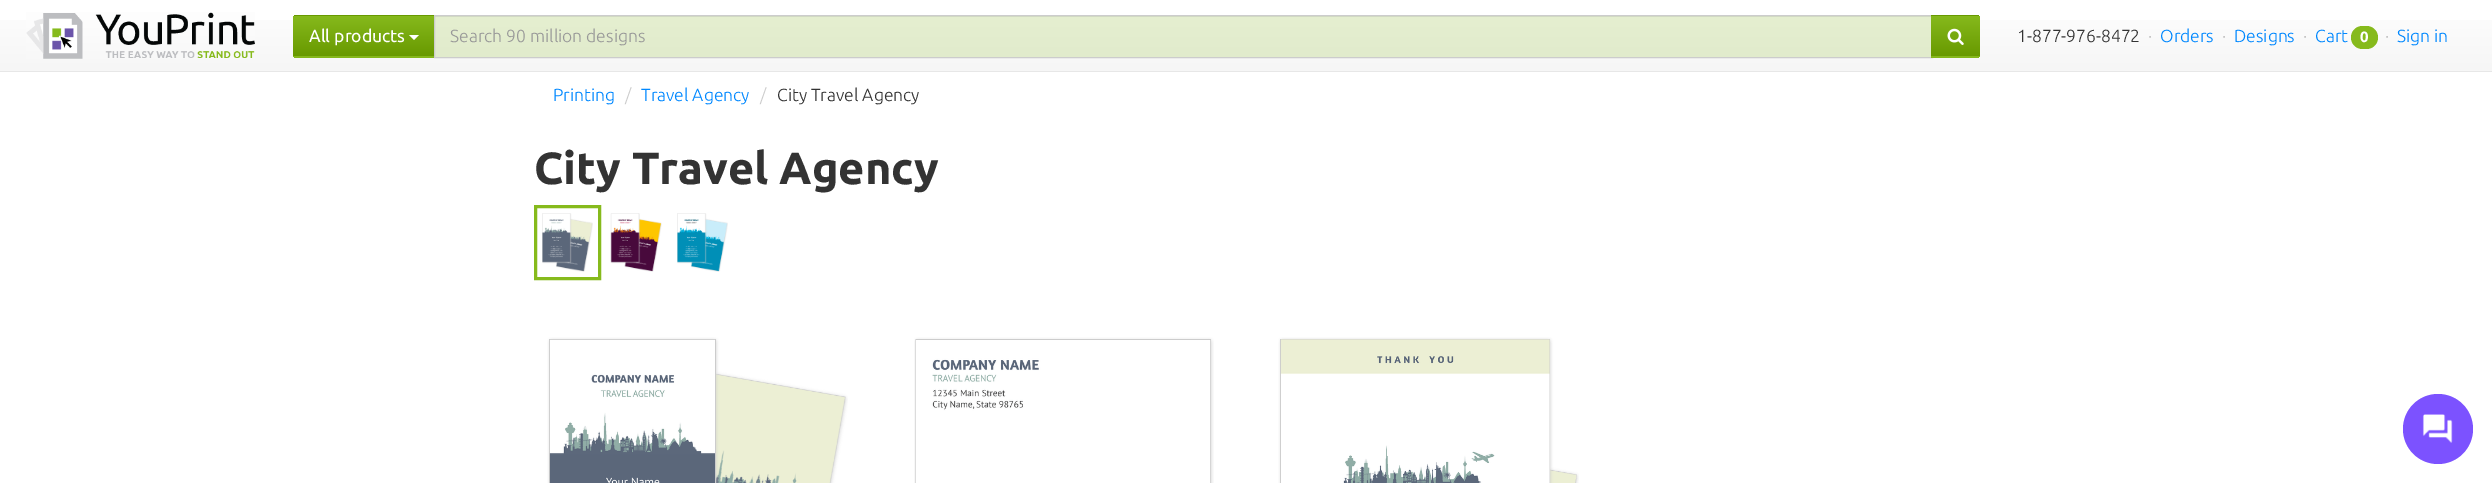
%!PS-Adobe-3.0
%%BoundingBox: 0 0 2492 483
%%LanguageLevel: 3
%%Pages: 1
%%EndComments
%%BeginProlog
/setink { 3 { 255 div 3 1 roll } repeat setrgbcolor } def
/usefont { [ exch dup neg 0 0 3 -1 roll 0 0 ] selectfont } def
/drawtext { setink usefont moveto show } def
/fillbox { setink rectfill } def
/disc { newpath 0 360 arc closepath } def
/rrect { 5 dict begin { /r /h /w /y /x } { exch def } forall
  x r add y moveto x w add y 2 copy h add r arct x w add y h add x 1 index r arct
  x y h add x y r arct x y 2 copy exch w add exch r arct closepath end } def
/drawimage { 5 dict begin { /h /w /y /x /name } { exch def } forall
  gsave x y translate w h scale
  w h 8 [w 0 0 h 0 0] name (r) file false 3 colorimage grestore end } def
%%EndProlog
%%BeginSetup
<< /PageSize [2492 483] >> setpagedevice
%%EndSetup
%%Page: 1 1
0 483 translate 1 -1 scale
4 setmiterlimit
0 0 2492 483 255 255 255 fillbox
gsave 0 20 moveto 2492 20 lineto 2492 71 lineto 0 71 lineto closepath clip newpath
<< /ShadingType 2 /ColorSpace /DeviceRGB /Coords [1246 0 1246 71] /Extend [true true] /Function << /FunctionType 2 /Domain [0 1] /C0 [1 1 1] /C1 [0.965 0.965 0.965] /N 1 >> >> shfill grestore
gsave 435 17 moveto 1931 17 lineto 1931 57 lineto 435 57 lineto closepath clip newpath
<< /ShadingType 2 /ColorSpace /DeviceRGB /Coords [1246 0 1246 71] /Extend [true true] /Function << /FunctionType 2 /Domain [0 1] /C0 [0.906 0.945 0.824] /C1 [0.878 0.918 0.792] /N 1 >> >> shfill grestore
0 71 2492 1 231 231 231 fillbox
(assets/img1.rgb) 26 12 229 47 drawimage
gsave
298 15 moveto 435 15 lineto 435 58 lineto 298 58 lineto 295 58 293 56 293 53 curveto 293 20 lineto 293 17 295 15 298 15 curveto closepath clip newpath
gsave 293 15 moveto 435 15 lineto 435 16 lineto 293 16 lineto closepath clip newpath
<< /ShadingType 2 /ColorSpace /DeviceRGB /Coords [364 -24 364 16] /Extend [true true] /Function << /FunctionType 2 /Domain [0 1] /C0 [0.525 0.725 0.11] /C1 [0.408 0.6 0] /N 1 >> >> shfill grestore
gsave 293 16 moveto 434 16 lineto 434 56 lineto 293 56 lineto closepath clip newpath
<< /ShadingType 2 /ColorSpace /DeviceRGB /Coords [364 16 364 56] /Extend [true true] /Function << /FunctionType 2 /Domain [0 1] /C0 [0.525 0.725 0.11] /C1 [0.408 0.6 0] /N 1 >> >> shfill grestore
gsave 293 56 moveto 435 56 lineto 435 58 lineto 293 58 lineto closepath clip newpath
<< /ShadingType 2 /ColorSpace /DeviceRGB /Coords [364 56 364 96] /Extend [true true] /Function << /FunctionType 2 /Domain [0 1] /C0 [0.525 0.725 0.11] /C1 [0.408 0.6 0] /N 1 >> >> shfill grestore
grestore
(All products) 309 42 /Ubuntu-Regular 17.5 255 255 255 drawtext
409 35 moveto 419 35 lineto 414 40 lineto closepath fill
435 16 1496 1 212 222 192 fillbox
204 204 204 setink
434.5 15.5 1498 42 rectstroke
(Search 90 million designs) 450 42 /Ubuntu-Light 17.5 153 153 153 drawtext
gsave
1931 15 moveto 1975 15 lineto 1978 15 1980 17 1980 20 curveto 1980 53 lineto 1980 56 1978 58 1975 58 curveto 1931 58 lineto closepath clip newpath
gsave 1931 15 moveto 1980 15 lineto 1980 16 lineto 1931 16 lineto closepath clip newpath
<< /ShadingType 2 /ColorSpace /DeviceRGB /Coords [1956 -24 1956 16] /Extend [true true] /Function << /FunctionType 2 /Domain [0 1] /C0 [0.525 0.725 0.11] /C1 [0.408 0.6 0] /N 1 >> >> shfill grestore
gsave 1931 16 moveto 1980 16 lineto 1980 56 lineto 1931 56 lineto closepath clip newpath
<< /ShadingType 2 /ColorSpace /DeviceRGB /Coords [1956 16 1956 56] /Extend [true true] /Function << /FunctionType 2 /Domain [0 1] /C0 [0.525 0.725 0.11] /C1 [0.408 0.6 0] /N 1 >> >> shfill grestore
gsave 1931 56 moveto 1980 56 lineto 1980 58 lineto 1931 58 lineto closepath clip newpath
<< /ShadingType 2 /ColorSpace /DeviceRGB /Coords [1956 56 1956 96] /Extend [true true] /Function << /FunctionType 2 /Domain [0 1] /C0 [0.525 0.725 0.11] /C1 [0.408 0.6 0] /N 1 >> >> shfill grestore
grestore
(assets/img2.rgb) 1947 28 17 17 drawimage
(1-877-976-8472) 2017 42 /Ubuntu-Light 17.5 51 51 51 drawtext
(·) 2148 42 /Ubuntu-Light 17.5 190 190 190 drawtext
(Orders) 2160 42 /Ubuntu-Light 17.5 0 136 255 drawtext
(·) 2222 42 /Ubuntu-Light 17.5 190 190 190 drawtext
(Designs) 2234 42 /Ubuntu-Light 17.5 0 136 255 drawtext
(·) 2303 42 /Ubuntu-Light 17.5 190 190 190 drawtext
(Cart) 2315 42 /Ubuntu-Light 17.5 0 136 255 drawtext
134 186 28 setink
2351 26 27 23 11.5 rrect fill
(0) 2360 42 /Ubuntu-Bold 15 255 255 255 drawtext
(·) 2385 42 /Ubuntu-Light 17.5 190 190 190 drawtext
(Sign in) 2397 42 /Ubuntu-Light 17.5 0 136 255 drawtext
(Printing) 553 101 /Ubuntu-Light 17.5 0 136 255 drawtext
(/) 625 101 /Ubuntu-Light 17.5 204 204 204 drawtext
(Travel Agency) 641 101 /Ubuntu-Light 17.5 0 136 255 drawtext
(/) 760 101 /Ubuntu-Light 17.5 204 204 204 drawtext
(City Travel Agency) 777 101 /Ubuntu-Light 17.5 51 51 51 drawtext
(City Travel Agency) 534 184 /Ubuntu-Bold 45 51 51 51 drawtext
134 186 28 setink
3 setlinewidth
535.5 206.5 64 72 rectstroke
(assets/img3.rgb) 542 213 51 59 drawimage
(assets/img4.rgb) 610 213 52 59 drawimage
(assets/img5.rgb) 677 213 51 59 drawimage
(assets/img6.rgb) 547 337 301 146 drawimage
(assets/img7.rgb) 914 337 300 146 drawimage
(assets/img8.rgb) 1278 337 301 146 drawimage
124 82 255 setink
2438 429 35 disc fill
(assets/img9.rgb) 2422 414 31 29 drawimage
showpage
%%EOF
